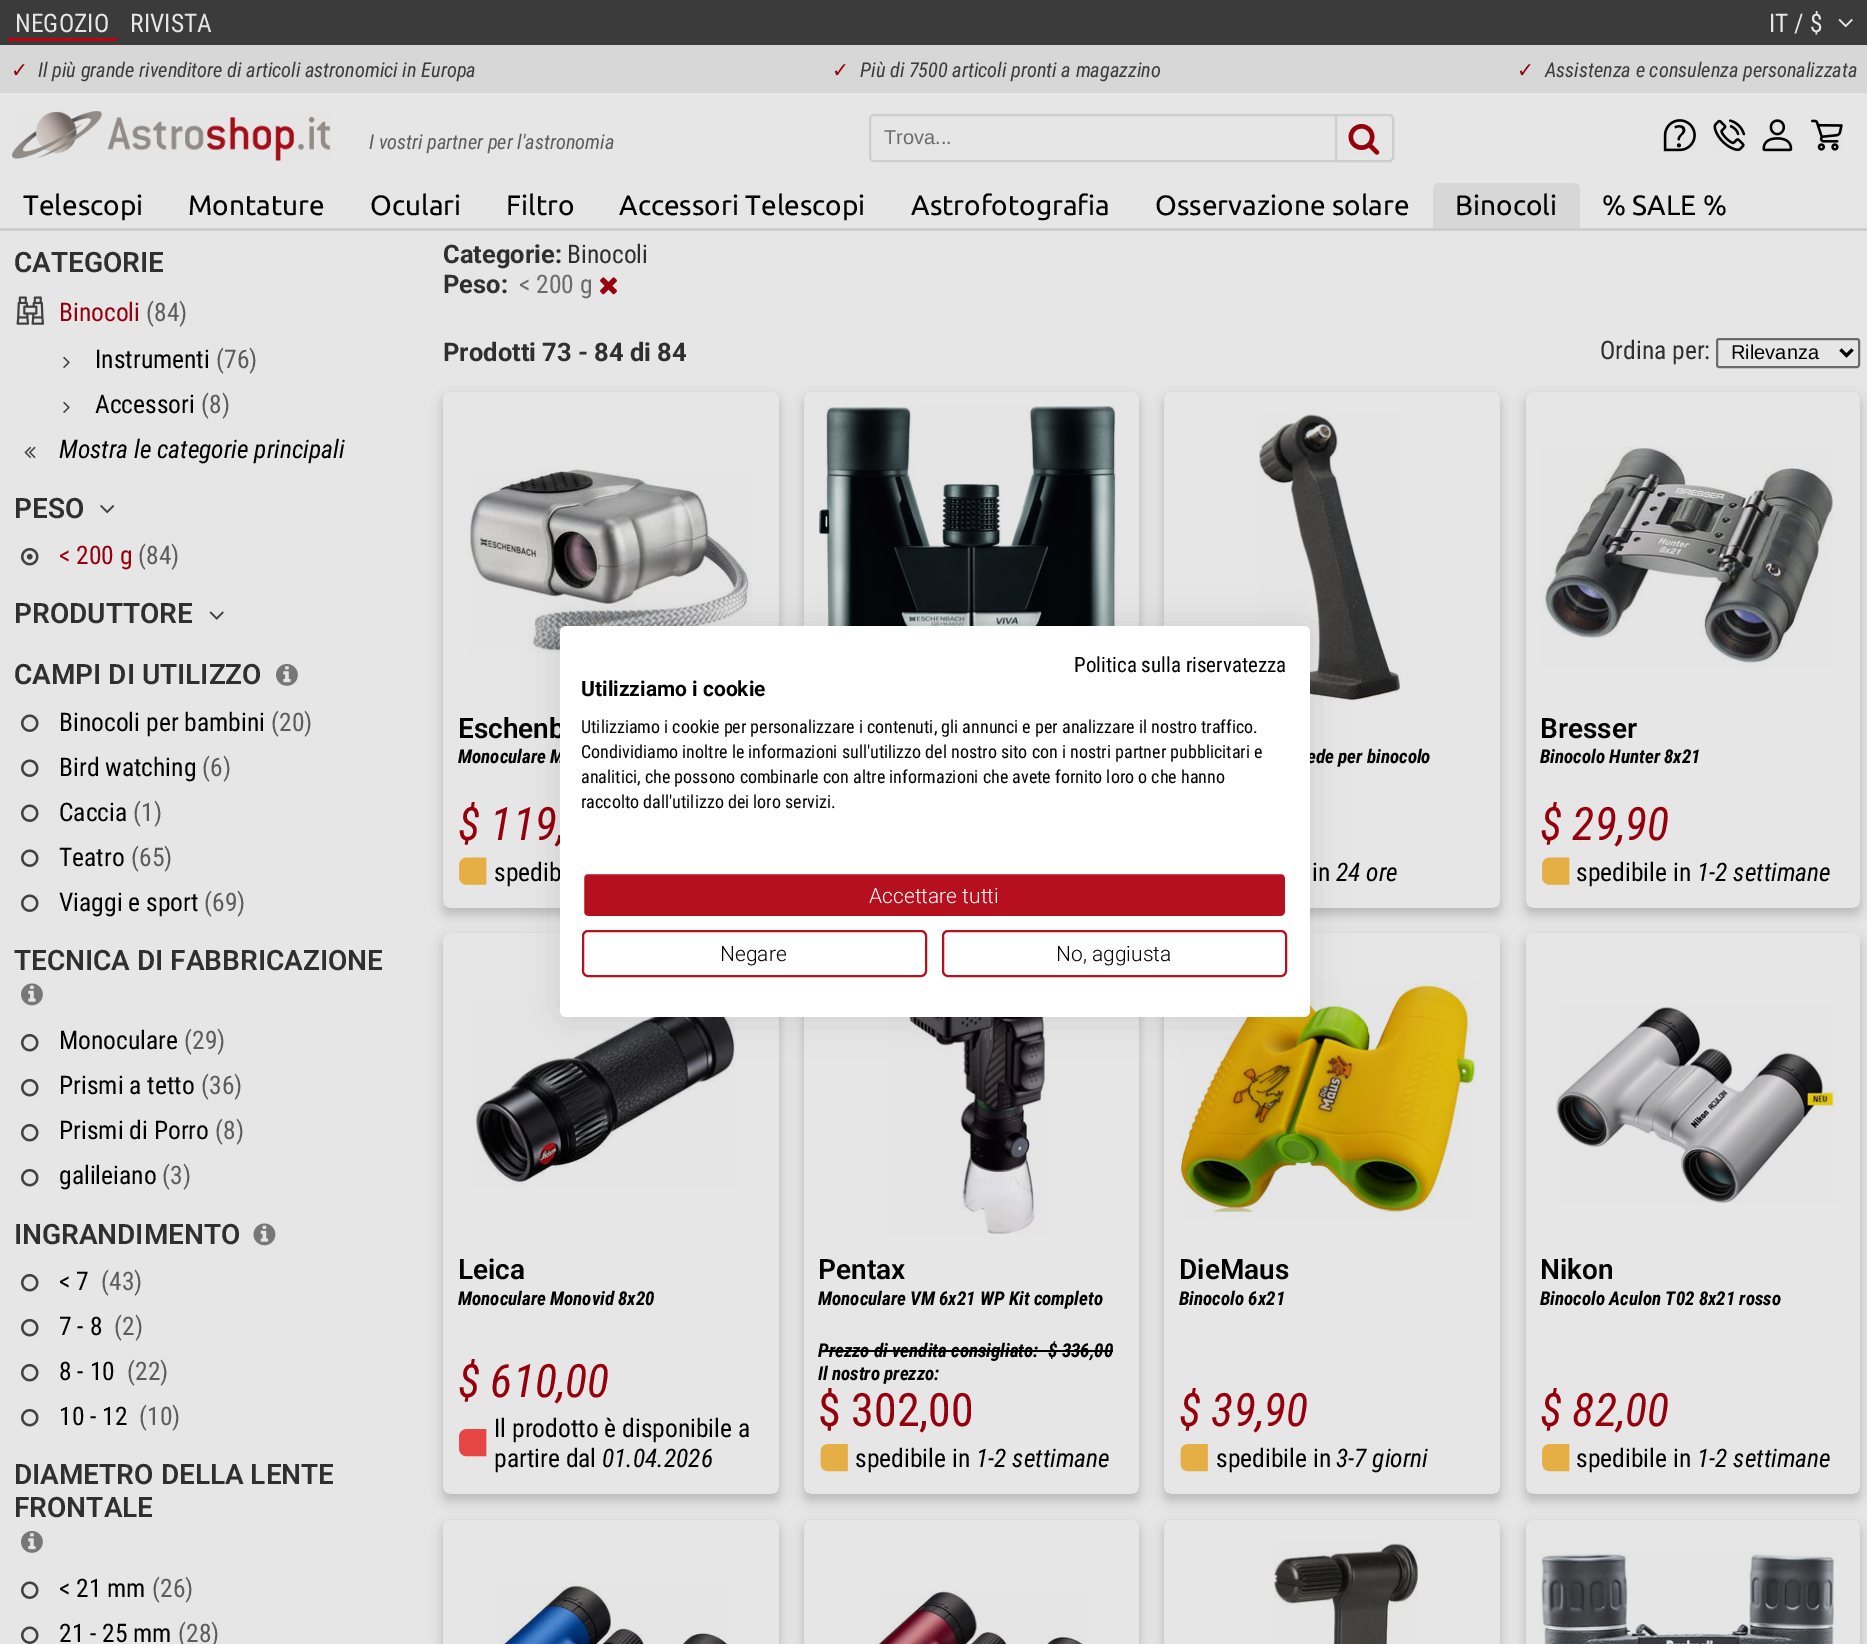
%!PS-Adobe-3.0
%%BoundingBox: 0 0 1867 1644
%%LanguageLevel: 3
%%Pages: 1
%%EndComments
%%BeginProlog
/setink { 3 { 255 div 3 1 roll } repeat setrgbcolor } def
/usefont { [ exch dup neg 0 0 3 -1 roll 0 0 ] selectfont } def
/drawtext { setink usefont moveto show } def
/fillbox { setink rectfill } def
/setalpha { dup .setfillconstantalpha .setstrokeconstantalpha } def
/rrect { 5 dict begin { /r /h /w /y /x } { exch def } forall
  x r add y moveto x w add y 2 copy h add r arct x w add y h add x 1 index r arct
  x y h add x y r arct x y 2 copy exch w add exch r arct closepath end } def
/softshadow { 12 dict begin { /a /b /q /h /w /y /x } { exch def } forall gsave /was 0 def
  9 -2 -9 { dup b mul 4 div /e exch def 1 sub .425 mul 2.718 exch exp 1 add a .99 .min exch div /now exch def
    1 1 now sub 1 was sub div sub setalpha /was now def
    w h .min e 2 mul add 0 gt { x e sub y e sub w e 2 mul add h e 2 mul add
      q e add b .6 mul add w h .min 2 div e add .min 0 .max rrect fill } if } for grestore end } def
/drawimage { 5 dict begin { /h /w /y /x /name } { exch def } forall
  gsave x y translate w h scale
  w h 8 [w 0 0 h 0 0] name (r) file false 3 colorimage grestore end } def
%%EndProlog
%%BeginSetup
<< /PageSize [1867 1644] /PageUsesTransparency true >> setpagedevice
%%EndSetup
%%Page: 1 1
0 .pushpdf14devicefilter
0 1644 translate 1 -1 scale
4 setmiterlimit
0 0 1867 1644 230 230 230 fillbox
0 0 1867 45 59 59 60 fillbox
(NEGOZIO) 15 32 /RobotoCondensed-Regular 25.5 230 230 230 drawtext
8 38 109 3 199 0 15 fillbox
(RIVISTA) 130 32 /RobotoCondensed-Regular 25.5 230 230 230 drawtext
(IT / $) 1769 32 /RobotoCondensed-Regular 25.5 230 230 230 drawtext
(assets/img1.rgb) 1838 19 15 9 drawimage
0 45 1867 48 215 215 215 fillbox
(✓) 11 77 /DejaVuSans-Regular 20.4 149 0 12 drawtext
(Il più grande rivenditore di articoli astronomici in Europa) 38 77 /RobotoCondensed-Italic 20.4 59 59 60 drawtext
(✓) 832 77 /DejaVuSans-Regular 20.4 149 0 12 drawtext
(Più di 7500 articoli pronti a magazzino) 860 77 /RobotoCondensed-Italic 20.4 59 59 60 drawtext
(✓) 1517 77 /DejaVuSans-Regular 20.4 149 0 12 drawtext
(Assistenza e consulenza personalizzata) 1545 77 /RobotoCondensed-Italic 20.4 59 59 60 drawtext
(assets/img2.rgb) 12 111 319 50 drawimage
(I vostri partner per l'astronomia) 369 149 /RobotoCondensed-Italic 20.4 92 92 92 drawtext
206 206 206 setink
2 setlinewidth
870 115 523 46 4 rrect stroke
(Trova...) 884 144 /LiberationSans-Regular 20 107 107 107 drawtext
230 230 230 setink
1336 115 moveto 1389 115 lineto 1391 115 1393 117 1393 119 curveto 1393 157 lineto 1393 159 1391 161 1389 161 curveto 1336 161 lineto closepath gsave fill grestore
206 206 206 setink
stroke
(assets/img3.rgb) 1348 124 32 31 drawimage
(assets/img4.rgb) 1663 119 33 33 drawimage
(assets/img5.rgb) 1713 119 33 33 drawimage
(assets/img6.rgb) 1762 119 31 33 drawimage
(assets/img7.rgb) 1811 119 32 32 drawimage
(Telescopi) 23 215 /Ubuntu-Regular 28 0 0 0 drawtext
(Montature) 188 215 /Ubuntu-Regular 28 0 0 0 drawtext
(Oculari) 370 215 /Ubuntu-Regular 28 0 0 0 drawtext
(Filtro) 506 215 /Ubuntu-Regular 28 0 0 0 drawtext
(Accessori Telescopi) 619 215 /Ubuntu-Regular 28 0 0 0 drawtext
(Astrofotografia) 911 215 /Ubuntu-Regular 28 0 0 0 drawtext
(Osservazione solare) 1155 215 /Ubuntu-Regular 28 0 0 0 drawtext
215 215 215 setink
1439 183 moveto 1574 183 lineto 1577.5 183 1580 185.5 1580 189 curveto 1580 228 lineto 1433 228 lineto 1433 189 lineto 1433 185.5 1435.5 183 1439 183 curveto closepath fill
(Binocoli) 1455 215 /Ubuntu-Regular 28 0 0 0 drawtext
(% SALE %) 1602 215 /Ubuntu-Regular 28 0 0 0 drawtext
0 228 1867 3 206 206 206 fillbox
(CATEGORIE) 14 272 /Roboto-SemiBold 28 47 47 47 drawtext
(assets/img8.rgb) 16 296 28 29 drawimage
(Binocoli) 59 321 /RobotoCondensed-Regular 25.5 149 0 12 drawtext
(\(84\)) 146 321 /RobotoCondensed-Regular 25.5 92 92 92 drawtext
(assets/img9.rgb) 63 356 7 13 drawimage
(Instrumenti) 95 368 /RobotoCondensed-Regular 25.5 0 0 0 drawtext
(\(76\)) 216 368 /RobotoCondensed-Regular 25.5 92 92 92 drawtext
(assets/img9.rgb) 63 401 7 13 drawimage
(Accessori) 95 413 /RobotoCondensed-Regular 25.5 0 0 0 drawtext
(\(8\)) 201 413 /RobotoCondensed-Regular 25.5 92 92 92 drawtext
(assets/img10.rgb) 24 446 12 13 drawimage
(Mostra le categorie principali) 59 458 /RobotoCondensed-Italic 25.5 0 0 0 drawtext
(PESO) 14 518 /Roboto-SemiBold 28 47 47 47 drawtext
(assets/img11.rgb) 100 505 15 9 drawimage
(assets/img12.rgb) 21 548 18 18 drawimage
(< 200 g) 59 564 /RobotoCondensed-Regular 25.5 149 0 12 drawtext
(\(84\)) 138 564 /RobotoCondensed-Regular 25.5 92 92 92 drawtext
(PRODUTTORE) 14 623 /Roboto-SemiBold 28 47 47 47 drawtext
(assets/img13.rgb) 209 611 15 9 drawimage
(CAMPI DI UTILIZZO) 14 684 /Roboto-SemiBold 28 47 47 47 drawtext
(assets/img14.rgb) 276 664 22 22 drawimage
(assets/img15.rgb) 21 714 18 18 drawimage
(Binocoli per bambini) 59 731 /RobotoCondensed-Regular 25.5 0 0 0 drawtext
(\(20\)) 271 731 /RobotoCondensed-Regular 25.5 92 92 92 drawtext
(assets/img15.rgb) 21 759 18 18 drawimage
(Bird watching) 59 776 /RobotoCondensed-Regular 25.5 0 0 0 drawtext
(\(6\)) 202 776 /RobotoCondensed-Regular 25.5 92 92 92 drawtext
(assets/img15.rgb) 21 804 18 18 drawimage
(Caccia) 59 821 /RobotoCondensed-Regular 25.5 0 0 0 drawtext
(\(1\)) 133 821 /RobotoCondensed-Regular 25.5 92 92 92 drawtext
(assets/img15.rgb) 21 849 18 18 drawimage
(Teatro) 59 866 /RobotoCondensed-Regular 25.5 0 0 0 drawtext
(\(65\)) 131 866 /RobotoCondensed-Regular 25.5 92 92 92 drawtext
(assets/img15.rgb) 21 894 18 18 drawimage
(Viaggi e sport) 59 911 /RobotoCondensed-Regular 25.5 0 0 0 drawtext
(\(69\)) 204 911 /RobotoCondensed-Regular 25.5 92 92 92 drawtext
(TECNICA DI FABBRICAZIONE) 14 970 /Roboto-SemiBold 28 47 47 47 drawtext
(assets/img16.rgb) 21 983 22 23 drawimage
(assets/img17.rgb) 21 1034 18 18 drawimage
(Monoculare) 59 1049 /RobotoCondensed-Regular 25.5 0 0 0 drawtext
(\(29\)) 184 1049 /RobotoCondensed-Regular 25.5 92 92 92 drawtext
(assets/img17.rgb) 21 1079 18 18 drawimage
(Prismi a tetto) 59 1094 /RobotoCondensed-Regular 25.5 0 0 0 drawtext
(\(36\)) 201 1094 /RobotoCondensed-Regular 25.5 92 92 92 drawtext
(assets/img17.rgb) 21 1124 18 18 drawimage
(Prismi di Porro) 59 1139 /RobotoCondensed-Regular 25.5 0 0 0 drawtext
(\(8\)) 215 1139 /RobotoCondensed-Regular 25.5 92 92 92 drawtext
(assets/img17.rgb) 21 1169 18 18 drawimage
(galileiano) 59 1184 /RobotoCondensed-Regular 25.5 0 0 0 drawtext
(\(3\)) 162 1184 /RobotoCondensed-Regular 25.5 92 92 92 drawtext
(INGRANDIMENTO) 14 1244 /Roboto-SemiBold 28 47 47 47 drawtext
(assets/img18.rgb) 253 1223 23 23 drawimage
(assets/img17.rgb) 21 1274 18 18 drawimage
(< 7) 59 1290 /RobotoCondensed-Regular 25.5 0 0 0 drawtext
(\(43\)) 101 1290 /RobotoCondensed-Regular 25.5 92 92 92 drawtext
(assets/img17.rgb) 21 1319 18 18 drawimage
(7 - 8) 59 1335 /RobotoCondensed-Regular 25.5 0 0 0 drawtext
(\(2\)) 114 1335 /RobotoCondensed-Regular 25.5 92 92 92 drawtext
(assets/img17.rgb) 21 1364 18 18 drawimage
(8 - 10) 59 1380 /RobotoCondensed-Regular 25.5 0 0 0 drawtext
(\(22\)) 127 1380 /RobotoCondensed-Regular 25.5 92 92 92 drawtext
(assets/img17.rgb) 21 1409 18 18 drawimage
(10 - 12) 59 1425 /RobotoCondensed-Regular 25.5 0 0 0 drawtext
(\(10\)) 139 1425 /RobotoCondensed-Regular 25.5 92 92 92 drawtext
(DIAMETRO DELLA LENTE) 14 1484 /Roboto-SemiBold 28 47 47 47 drawtext
(FRONTALE) 14 1517 /Roboto-SemiBold 28 47 47 47 drawtext
(assets/img14.rgb) 21 1531 22 22 drawimage
(assets/img15.rgb) 21 1581 18 18 drawimage
(< 21 mm) 59 1597 /RobotoCondensed-Regular 25.5 0 0 0 drawtext
(\(26\)) 152 1597 /RobotoCondensed-Regular 25.5 92 92 92 drawtext
(assets/img15.rgb) 21 1626 18 18 drawimage
(21 - 25 mm) 59 1642 /RobotoCondensed-Regular 25.5 0 0 0 drawtext
(\(28\)) 178 1642 /RobotoCondensed-Regular 25.5 92 92 92 drawtext
(Categorie:) 443 263 /Roboto-Bold 25.5 47 47 47 drawtext
(Binocoli) 567 263 /RobotoCondensed-Regular 25.5 47 47 47 drawtext
(Peso:) 443 293 /Roboto-Bold 25.5 47 47 47 drawtext
(< 200 g) 519 293 /RobotoCondensed-Regular 25.5 107 107 107 drawtext
(assets/img19.rgb) 600 277 17 18 drawimage
(Prodotti 73 - 84 di 84) 443 361 /Roboto-Bold 25.5 47 47 47 drawtext
(Ordina per:) 1600 359 /RobotoCondensed-Regular 25.5 47 47 47 drawtext
106 106 106 setink
1717 339 142 28 2 rrect stroke
0 0 0 setink
3 setlinewidth
1840.5 349.5 moveto 1846.5 355.5 lineto 1852.5 349.5 lineto stroke
(Rilevanza) 1731 359 /LiberationSans-Regular 20 0 0 0 drawtext
gsave
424 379 moveto 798 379 lineto 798 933 lineto 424 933 lineto closepath 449 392 moveto 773 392 lineto 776.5 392 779 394.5 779 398 curveto 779 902 lineto 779 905.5 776.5 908 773 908 curveto 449 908 lineto 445.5 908 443 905.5 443 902 curveto 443 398 lineto 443 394.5 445.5 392 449 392 curveto closepath eoclip newpath
443 398 336 516 6 6 0.2 softshadow
grestore
(assets/img20.rgb) 468 468 284 185 drawimage
(Eschenb) 458 738 /Roboto-SemiBold 28 0 0 0 drawtext
(Monoculare M) 458 763 /RobotoCondensed-BoldItalic 19.1 0 0 0 drawtext
($ 119,) 458 840 /RobotoCondensed-Italic 46 149 0 12 drawtext
(assets/img21.rgb) 459 857 28 28 drawimage
(spedib) 494 881 /RobotoCondensed-Regular 25.5 0 0 0 drawtext
gsave
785 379 moveto 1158 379 lineto 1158 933 lineto 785 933 lineto closepath 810 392 moveto 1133 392 lineto 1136.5 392 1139 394.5 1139 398 curveto 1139 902 lineto 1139 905.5 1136.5 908 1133 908 curveto 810 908 lineto 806.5 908 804 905.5 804 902 curveto 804 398 lineto 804 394.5 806.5 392 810 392 curveto closepath eoclip newpath
804 398 335 516 6 6 0.2 softshadow
grestore
(assets/img22.rgb) 819 406 297 220 drawimage
gsave
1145 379 moveto 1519 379 lineto 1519 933 lineto 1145 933 lineto closepath 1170 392 moveto 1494 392 lineto 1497.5 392 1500 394.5 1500 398 curveto 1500 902 lineto 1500 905.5 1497.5 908 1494 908 curveto 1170 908 lineto 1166.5 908 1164 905.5 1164 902 curveto 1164 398 lineto 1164 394.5 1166.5 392 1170 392 curveto closepath eoclip newpath
1164 398 336 516 6 6 0.2 softshadow
grestore
(assets/img23.rgb) 1258 414 144 287 drawimage
(ede per binocolo) 1307 763 /RobotoCondensed-BoldItalic 19.1 0 0 0 drawtext
(in) 1312 881 /RobotoCondensed-Regular 25.5 0 0 0 drawtext
(24 ore) 1336 881 /RobotoCondensed-Italic 25.5 0 0 0 drawtext
gsave
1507 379 moveto 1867 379 lineto 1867 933 lineto 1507 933 lineto closepath 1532 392 moveto 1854 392 lineto 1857.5 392 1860 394.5 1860 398 curveto 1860 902 lineto 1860 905.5 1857.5 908 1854 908 curveto 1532 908 lineto 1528.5 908 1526 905.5 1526 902 curveto 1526 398 lineto 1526 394.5 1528.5 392 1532 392 curveto closepath eoclip newpath
1526 398 334 516 6 6 0.2 softshadow
grestore
(assets/img24.rgb) 1541 447 293 220 drawimage
(Bresser) 1540 738 /Roboto-SemiBold 28 0 0 0 drawtext
(Binocolo Hunter 8x21) 1540 763 /RobotoCondensed-BoldItalic 19.1 0 0 0 drawtext
($ 29,90) 1540 840 /RobotoCondensed-Italic 46 149 0 12 drawtext
(assets/img21.rgb) 1542 857 28 28 drawimage
(spedibile in) 1576 881 /RobotoCondensed-Regular 25.5 0 0 0 drawtext
(1-2 settimane) 1697 881 /RobotoCondensed-Italic 25.5 0 0 0 drawtext
gsave
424 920 moveto 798 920 lineto 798 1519 lineto 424 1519 lineto closepath 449 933 moveto 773 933 lineto 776.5 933 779 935.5 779 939 curveto 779 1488 lineto 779 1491.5 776.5 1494 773 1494 curveto 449 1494 lineto 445.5 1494 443 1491.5 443 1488 curveto 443 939 lineto 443 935.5 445.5 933 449 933 curveto closepath eoclip newpath
443 939 336 561 6 6 0.2 softshadow
grestore
(assets/img25.rgb) 474 995 262 192 drawimage
(Leica) 458 1279 /Roboto-SemiBold 28 0 0 0 drawtext
(Monoculare Monovid 8x20) 458 1305 /RobotoCondensed-BoldItalic 19.1 0 0 0 drawtext
($ 610,00) 458 1397 /RobotoCondensed-Italic 46 149 0 12 drawtext
(assets/img26.rgb) 459 1429 28 28 drawimage
(Il prodotto è disponibile a) 494 1437 /RobotoCondensed-Regular 25.5 0 0 0 drawtext
(partire dal) 494 1467 /RobotoCondensed-Regular 25.5 0 0 0 drawtext
(01.04.2026) 602 1467 /RobotoCondensed-Italic 25.5 0 0 0 drawtext
gsave
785 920 moveto 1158 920 lineto 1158 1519 lineto 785 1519 lineto closepath 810 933 moveto 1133 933 lineto 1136.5 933 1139 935.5 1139 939 curveto 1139 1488 lineto 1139 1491.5 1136.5 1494 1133 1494 curveto 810 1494 lineto 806.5 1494 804 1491.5 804 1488 curveto 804 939 lineto 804 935.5 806.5 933 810 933 curveto closepath eoclip newpath
804 939 335 561 6 6 0.2 softshadow
grestore
(assets/img27.rgb) 889 1017 159 217 drawimage
(Pentax) 818 1279 /Roboto-SemiBold 28 0 0 0 drawtext
(Monoculare VM 6x21 WP Kit completo) 818 1305 /RobotoCondensed-BoldItalic 19.1 0 0 0 drawtext
(Prezzo di vendita consigliato:) 818 1357 /RobotoCondensed-BoldItalic 19.1 0 0 0 drawtext
819 1350 230 2 0 0 0 fillbox
($ 336,00) 1048 1357 /RobotoCondensed-BoldItalic 19.1 0 0 0 drawtext
1049 1350 64 2 0 0 0 fillbox
(Il nostro prezzo:) 818 1380 /RobotoCondensed-BoldItalic 19.1 0 0 0 drawtext
($ 302,00) 818 1426 /RobotoCondensed-Regular 46 149 0 12 drawtext
(assets/img28.rgb) 820 1444 28 28 drawimage
(spedibile in) 855 1467 /RobotoCondensed-Regular 25.5 0 0 0 drawtext
(1-2 settimane) 976 1467 /RobotoCondensed-Italic 25.5 0 0 0 drawtext
gsave
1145 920 moveto 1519 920 lineto 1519 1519 lineto 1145 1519 lineto closepath 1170 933 moveto 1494 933 lineto 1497.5 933 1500 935.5 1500 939 curveto 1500 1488 lineto 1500 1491.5 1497.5 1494 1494 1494 curveto 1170 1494 lineto 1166.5 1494 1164 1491.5 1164 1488 curveto 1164 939 lineto 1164 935.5 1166.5 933 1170 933 curveto closepath eoclip newpath
1164 939 336 561 6 6 0.2 softshadow
grestore
(assets/img29.rgb) 1179 980 298 238 drawimage
(DieMaus) 1179 1279 /Roboto-SemiBold 28 0 0 0 drawtext
(Binocolo 6x21) 1179 1305 /RobotoCondensed-BoldItalic 19.1 0 0 0 drawtext
($ 39,90) 1179 1426 /RobotoCondensed-Italic 46 149 0 12 drawtext
(assets/img28.rgb) 1180 1444 28 28 drawimage
(spedibile in) 1216 1467 /RobotoCondensed-Regular 25.5 0 0 0 drawtext
(3-7 giorni) 1336 1467 /RobotoCondensed-Italic 25.5 0 0 0 drawtext
gsave
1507 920 moveto 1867 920 lineto 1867 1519 lineto 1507 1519 lineto closepath 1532 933 moveto 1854 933 lineto 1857.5 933 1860 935.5 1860 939 curveto 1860 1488 lineto 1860 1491.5 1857.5 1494 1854 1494 curveto 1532 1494 lineto 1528.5 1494 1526 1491.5 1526 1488 curveto 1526 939 lineto 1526 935.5 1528.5 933 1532 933 curveto closepath eoclip newpath
1526 939 334 561 6 6 0.2 softshadow
grestore
(assets/img30.rgb) 1556 1006 281 197 drawimage
(Nikon) 1540 1279 /Roboto-SemiBold 28 0 0 0 drawtext
(Binocolo Aculon T02 8x21 rosso) 1540 1305 /RobotoCondensed-BoldItalic 19.1 0 0 0 drawtext
($ 82,00) 1540 1426 /RobotoCondensed-Italic 46 149 0 12 drawtext
(assets/img31.rgb) 1542 1444 28 28 drawimage
(spedibile in) 1576 1467 /RobotoCondensed-Regular 25.5 0 0 0 drawtext
(1-2 settimane) 1697 1467 /RobotoCondensed-Italic 25.5 0 0 0 drawtext
gsave
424 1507 moveto 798 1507 lineto 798 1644 lineto 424 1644 lineto closepath 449 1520 moveto 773 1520 lineto 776.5 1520 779 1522.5 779 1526 curveto 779 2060 lineto 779 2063.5 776.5 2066 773 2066 curveto 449 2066 lineto 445.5 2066 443 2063.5 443 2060 curveto 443 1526 lineto 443 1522.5 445.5 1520 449 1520 curveto closepath eoclip newpath
443 1526 336 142 6 6 0.2 softshadow
grestore
(assets/img32.rgb) 497 1583 233 61 drawimage
gsave
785 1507 moveto 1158 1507 lineto 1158 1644 lineto 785 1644 lineto closepath 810 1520 moveto 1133 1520 lineto 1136.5 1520 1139 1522.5 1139 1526 curveto 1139 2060 lineto 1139 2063.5 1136.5 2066 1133 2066 curveto 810 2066 lineto 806.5 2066 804 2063.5 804 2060 curveto 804 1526 lineto 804 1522.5 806.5 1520 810 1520 curveto closepath eoclip newpath
804 1526 335 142 6 6 0.2 softshadow
grestore
(assets/img33.rgb) 875 1591 212 53 drawimage
gsave
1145 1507 moveto 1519 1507 lineto 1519 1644 lineto 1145 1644 lineto closepath 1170 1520 moveto 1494 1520 lineto 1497.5 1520 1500 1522.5 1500 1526 curveto 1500 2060 lineto 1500 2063.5 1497.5 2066 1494 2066 curveto 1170 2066 lineto 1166.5 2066 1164 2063.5 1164 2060 curveto 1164 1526 lineto 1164 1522.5 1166.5 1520 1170 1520 curveto closepath eoclip newpath
1164 1526 336 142 6 6 0.2 softshadow
grestore
(assets/img34.rgb) 1274 1542 144 102 drawimage
gsave
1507 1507 moveto 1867 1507 lineto 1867 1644 lineto 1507 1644 lineto closepath 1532 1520 moveto 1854 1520 lineto 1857.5 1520 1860 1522.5 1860 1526 curveto 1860 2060 lineto 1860 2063.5 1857.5 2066 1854 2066 curveto 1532 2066 lineto 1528.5 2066 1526 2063.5 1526 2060 curveto 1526 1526 lineto 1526 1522.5 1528.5 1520 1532 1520 curveto closepath eoclip newpath
1526 1526 334 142 6 6 0.2 softshadow
grestore
(assets/img35.rgb) 1540 1551 295 93 drawimage
560 626 750 391 6 18 0.1 softshadow
255 255 255 setink
560 626 750 391 6 rrect fill
(Politica sulla riservatezza) 1074 672 /RobotoCondensed-Regular 21 0 0 0 drawtext
(Utilizziamo i cookie) 581 696 /Roboto-Bold 21 0 0 0 drawtext
(Utilizziamo i cookie per personalizzare i contenuti, gli annunci e per analizzare il nostro traffico.) 581 733 /RobotoCondensed-Regular 18 0 0 0 drawtext
(Condividiamo inoltre le informazioni sull'utilizzo del nostro sito con i nostri partner pubblicitari e) 581 758 /RobotoCondensed-Regular 18 0 0 0 drawtext
(analitici, che possono combinarle con altre informazioni che avete fornito loro o che hanno) 581 783 /RobotoCondensed-Regular 18 0 0 0 drawtext
(raccolto dall'utilizzo dei loro servizi.) 581 808 /RobotoCondensed-Regular 18 0 0 0 drawtext
182 15 29 setink
583 873 703 44 5 rrect gsave fill grestore
255 255 255 setink
2 setlinewidth
stroke
(Accettare tutti) 869 903 /Roboto-Light 21 255 255 255 drawtext
182 15 29 setink
583 931 343 45 5 rrect stroke
(Negare) 720 961 /Roboto-Light 21 0 0 0 drawtext
182 15 29 setink
943 931 343 45 5 rrect stroke
(No, aggiusta) 1056 961 /Roboto-Light 21 0 0 0 drawtext
.poppdf14devicefilter showpage
%%EOF
